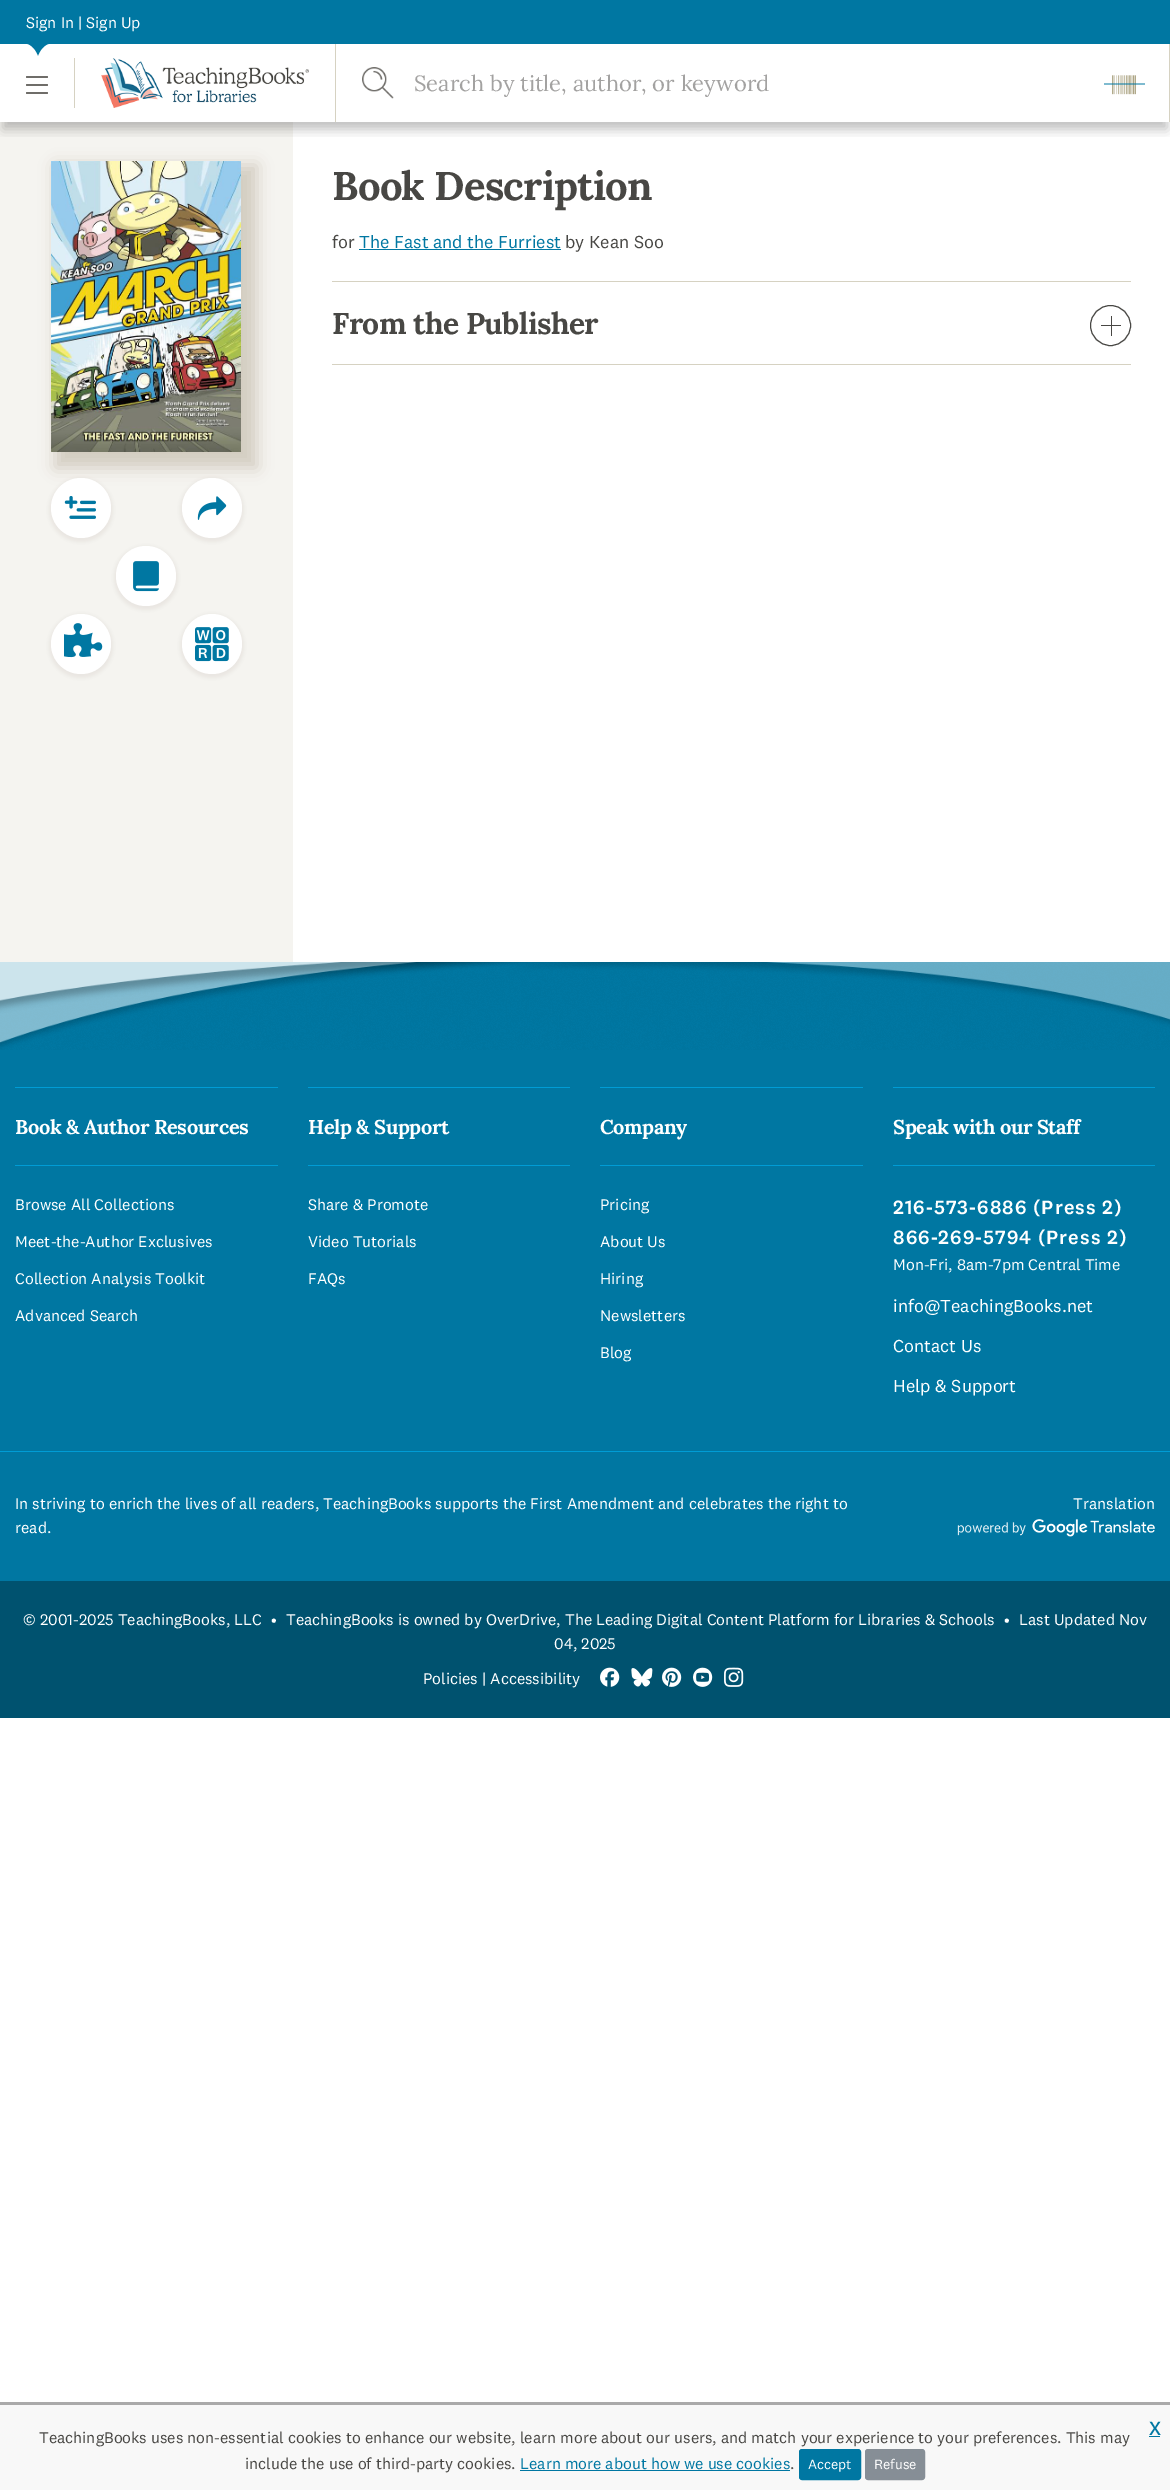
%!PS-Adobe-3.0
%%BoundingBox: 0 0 1170 2490
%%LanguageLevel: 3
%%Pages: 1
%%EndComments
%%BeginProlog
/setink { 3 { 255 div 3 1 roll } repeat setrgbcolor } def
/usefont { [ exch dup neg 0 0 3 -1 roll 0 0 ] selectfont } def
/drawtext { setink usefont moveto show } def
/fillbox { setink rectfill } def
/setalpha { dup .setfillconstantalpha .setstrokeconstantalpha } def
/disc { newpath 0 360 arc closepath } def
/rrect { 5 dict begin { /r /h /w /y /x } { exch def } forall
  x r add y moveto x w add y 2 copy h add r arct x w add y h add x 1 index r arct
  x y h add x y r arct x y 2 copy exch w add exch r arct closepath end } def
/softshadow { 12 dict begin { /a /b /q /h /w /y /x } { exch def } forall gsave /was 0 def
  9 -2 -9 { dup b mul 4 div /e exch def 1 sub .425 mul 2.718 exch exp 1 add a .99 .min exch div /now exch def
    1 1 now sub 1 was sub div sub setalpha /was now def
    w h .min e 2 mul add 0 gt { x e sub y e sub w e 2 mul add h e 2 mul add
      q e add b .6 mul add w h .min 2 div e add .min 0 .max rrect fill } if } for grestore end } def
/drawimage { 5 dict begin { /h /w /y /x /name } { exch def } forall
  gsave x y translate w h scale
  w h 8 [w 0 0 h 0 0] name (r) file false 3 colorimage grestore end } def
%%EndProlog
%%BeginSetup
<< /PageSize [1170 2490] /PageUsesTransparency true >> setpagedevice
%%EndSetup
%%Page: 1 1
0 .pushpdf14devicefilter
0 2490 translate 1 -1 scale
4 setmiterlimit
0 0 1170 2490 255 255 255 fillbox
0 122 293 840 245 244 240 fillbox
gsave
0 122 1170 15 rectclip
0 0 0 setink
3 57 1164 72 0 6 0.25 softshadow
grestore
0 119 162 setink
13 29 moveto 63 29 lineto 38 59 lineto closepath fill
255 255 255 setink
40 70.5 moveto 30.5 63.5 44 36.5 57 45.5 curveto 70 55 49.5 77 40 70.5 curveto closepath fill
36 70.5 moveto 26.5 77 6 55 19 45.5 curveto 32 36.5 45.5 63.5 36 70.5 curveto closepath fill
0 0 1170 44 0 119 162 fillbox
(Sign In | Sign Up) 26 28 /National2-Regular 16 255 255 255 drawtext
111 109 105 setink
26 76 22 2 1 rrect fill
26 84 22 2 1 rrect fill
26 92 22 2 1 rrect fill
74 58 1 50 214 210 194 fillbox
(assets/img1.rgb) 101 58 208 50 drawimage
1169 44 1 78 214 210 194 fillbox
335 44 1 78 214 210 194 fillbox
(assets/img2.rgb) 362 67 32 32 drawimage
(Search by title, author, or keyword) 414 91 /Lora-Regular 22 163 162 161 drawtext
(assets/img3.rgb) 1112 75 24 20 drawimage
0.5 setalpha
1104 83 41 2 0 119 162 fillbox
1 setalpha
200 192 177 setink
55 165 202 303 0 8 0.75 softshadow
(assets/img4.rgb) 51 161 190 291 drawimage
49 478 64 64 32 2 0.25 softshadow
255 255 255 setink
81 508 30 disc fill
(assets/img5.rgb) 64 496 32 23 drawimage
200 192 177 setink
180 478 64 64 32 2 0.25 softshadow
255 255 255 setink
212 508 30 disc fill
(assets/img6.rgb) 197 496 30 24 drawimage
200 192 177 setink
114 546 64 64 32 2 0.25 softshadow
255 255 255 setink
146 576 30 disc fill
(assets/img7.rgb) 133 561 26 31 drawimage
200 192 177 setink
49 614 64 64 32 2 0.25 softshadow
255 255 255 setink
81 644 30 disc fill
(assets/img8.rgb) 64 623 39 35 drawimage
200 192 177 setink
180 614 64 64 32 2 0.25 softshadow
255 255 255 setink
212 644 30 disc fill
(assets/img9.rgb) 195 627 34 35 drawimage
/Lora-Bold 40 usefont
72 71 68 setink
332 200 moveto -0.75 0 (Book Description) ashow
(for) 332 248 /National2-Regular 18 72 71 68 drawtext
(The Fast and the Furriest) 359 248 /National2-Regular 18 0 119 162 drawtext
359 249 202 1 0 119 162 fillbox
(by Kean Soo) 565 248 /National2-Regular 18 72 71 68 drawtext
332 281 799 1 214 210 194 fillbox
/Lora-Bold 30 usefont
72 71 68 setink
332 334 moveto -0.6 0 (From the Publisher) ashow
1110.5 325.5 20 disc stroke
1101 325 20 1 72 71 68 fillbox
1111 316 1 20 72 71 68 fillbox
332 364 799 1 214 210 194 fillbox
0 962 1170 619 0 119 162 fillbox
(assets/img10.rgb) 0 962 1170 88 drawimage
15 1087 263 1 0 156 213 fillbox
15 1165 263 1 0 156 213 fillbox
/Lora-Bold 20 usefont
255 255 255 setink
15 1134 moveto -0.4 0 (Book & Author Resources) ashow
(Browse All Collections) 15 1210 /National2-Regular 16 255 255 255 drawtext
(Meet-the-Author Exclusives) 15 1247 /National2-Regular 16 255 255 255 drawtext
(Collection Analysis Toolkit) 15 1284 /National2-Regular 16 255 255 255 drawtext
(Advanced Search) 15 1321 /National2-Regular 16 255 255 255 drawtext
308 1087 262 1 0 156 213 fillbox
308 1165 262 1 0 156 213 fillbox
/Lora-Bold 20 usefont
255 255 255 setink
308 1134 moveto -0.4 0 (Help & Support) ashow
(Share & Promote) 308 1210 /National2-Regular 16 255 255 255 drawtext
(Video Tutorials) 308 1247 /National2-Regular 16 255 255 255 drawtext
(FAQs) 308 1284 /National2-Regular 16 255 255 255 drawtext
600 1087 263 1 0 156 213 fillbox
600 1165 263 1 0 156 213 fillbox
/Lora-Bold 20 usefont
255 255 255 setink
600 1134 moveto -0.4 0 (Company) ashow
(Pricing) 600 1210 /National2-Regular 16 255 255 255 drawtext
(About Us) 600 1247 /National2-Regular 16 255 255 255 drawtext
(Hiring) 600 1284 /National2-Regular 16 255 255 255 drawtext
(Newsletters) 600 1321 /National2-Regular 16 255 255 255 drawtext
(Blog) 600 1358 /National2-Regular 16 255 255 255 drawtext
893 1087 262 1 0 156 213 fillbox
893 1165 262 1 0 156 213 fillbox
/Lora-Bold 20 usefont
255 255 255 setink
893 1134 moveto -0.4 0 (Speak with our Staff) ashow
/National2-Medium 20 usefont
893 1214 moveto 1 0 (216-573-6886 \(Press 2\)) ashow
893 1244 moveto 1 0 (866-269-5794 \(Press 2\)) ashow
(Mon-Fri, 8am-7pm Central Time) 893 1270 /National2-Regular 16 255 255 255 drawtext
(info@TeachingBooks.net) 893 1312 /National2-Regular 18 255 255 255 drawtext
(Contact Us) 893 1352 /National2-Regular 18 255 255 255 drawtext
(Help & Support) 893 1392 /National2-Regular 18 255 255 255 drawtext
0 1451 1170 1 0 156 213 fillbox
(In striving to enrich the lives of all readers, TeachingBooks supports the First Amendment and celebrates the right to) 15 1509 /National2-Regular 16 255 255 255 drawtext
(read.) 15 1533 /National2-Regular 16 255 255 255 drawtext
(Translation) 1073 1509 /National2-Regular 16 255 255 255 drawtext
(assets/img11.rgb) 957 1519 198 18 drawimage
0 1581 1170 137 0 82 111 fillbox
(© 2001-2025 TeachingBooks, LLC) 23 1625 /National2-Regular 16 255 255 255 drawtext
(•) 271 1625 /National2-Regular 16 255 255 255 drawtext
(TeachingBooks is owned by OverDrive, The Leading Digital Content Platform for Libraries & Schools) 286 1625 /National2-Regular 16 255 255 255 drawtext
(•) 1004 1625 /National2-Regular 16 255 255 255 drawtext
(Last Updated Nov) 1019 1625 /National2-Regular 16 255 255 255 drawtext
(04, 2025) 554 1649 /National2-Regular 16 255 255 255 drawtext
(Policies | Accessibility) 423 1684 /National2-Regular 16 255 255 255 drawtext
(assets/img12.rgb) 600 1667 20 20 drawimage
(assets/img13.rgb) 631 1668 22 19 drawimage
(assets/img14.rgb) 662 1667 20 20 drawimage
(assets/img15.rgb) 693 1667 20 20 drawimage
(assets/img16.rgb) 724 1667 20 20 drawimage
0 2405 1170 85 248 248 248 fillbox
0 2402 1170 3 170 170 170 fillbox
(X) 1149 2435 /National2-Bold 19 0 119 162 drawtext
1149 2436 11 1 0 119 162 fillbox
(TeachingBooks uses non-essential cookies to enhance our website, learn more about our users, and match your experience to your preferences. This may) 39 2443 /National2-Regular 16 72 71 68 drawtext
(include the use of third-party cookies.) 245 2469 /National2-Regular 16 72 71 68 drawtext
(Learn more about how we use cookies) 520 2469 /National2-Regular 16 0 119 162 drawtext
520 2470 270 1 0 119 162 fillbox
(.) 790 2469 /National2-Regular 16 72 71 68 drawtext
0 119 162 setink
799.5 2449.5 61 30 2.5 rrect gsave fill grestore
stroke
(Accept) 808 2469 /National2-Regular 14 255 255 255 drawtext
134 142 150 setink
865.5 2449.5 59 30 2.5 rrect gsave fill grestore
stroke
(Refuse) 874 2469 /National2-Regular 14 255 255 255 drawtext
.poppdf14devicefilter showpage
%%EOF
